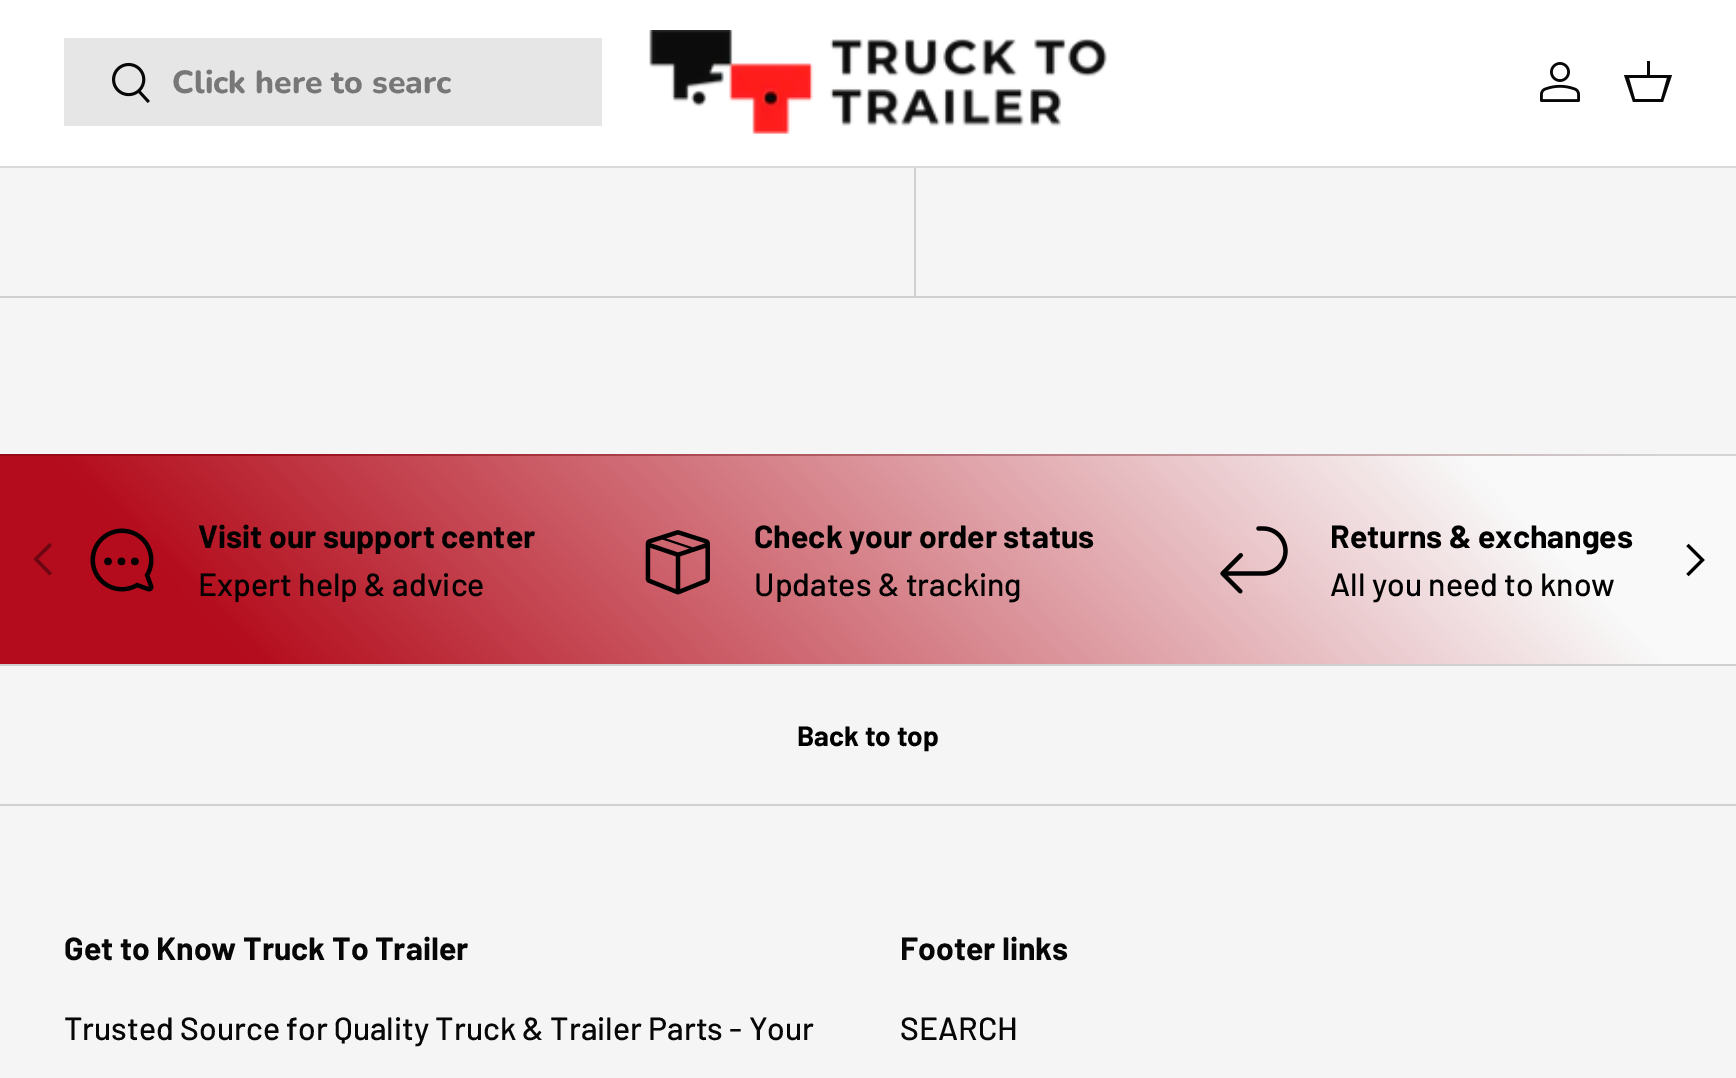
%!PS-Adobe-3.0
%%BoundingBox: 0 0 1736 1078
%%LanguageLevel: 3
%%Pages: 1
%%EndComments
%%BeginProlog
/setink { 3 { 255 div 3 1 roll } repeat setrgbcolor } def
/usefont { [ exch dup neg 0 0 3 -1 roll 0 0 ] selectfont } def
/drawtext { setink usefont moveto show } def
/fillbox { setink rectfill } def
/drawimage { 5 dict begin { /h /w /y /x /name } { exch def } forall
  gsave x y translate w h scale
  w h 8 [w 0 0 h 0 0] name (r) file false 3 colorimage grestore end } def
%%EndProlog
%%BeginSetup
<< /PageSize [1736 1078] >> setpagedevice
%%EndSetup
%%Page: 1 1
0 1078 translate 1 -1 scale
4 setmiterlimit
0 0 1736 1078 245 245 245 fillbox
0 0 1736 166 255 255 255 fillbox
0 166 1736 2 218 218 218 fillbox
64 38 538 88 230 230 230 fillbox
(assets/img1.rgb) 112 62 38 41 drawimage
(Click here to searc) 172 93 /Nunito-ExtraBold 32 119 119 119 drawtext
(assets/img2.rgb) 649 30 458 104 drawimage
(assets/img3.rgb) 1540 62 40 40 drawimage
7 7 7 setink
1647 75 moveto 1647 61 lineto 1650 61 lineto 1650 75 lineto 1672 75 lineto 1663 102 lineto 1633 102 lineto 1624 75 lineto closepath 1629 78 moveto 1635 99 lineto 1661 99 lineto 1667 78 lineto closepath fill
0 296 1736 2 208 208 208 fillbox
914 168 2 130 208 208 208 fillbox
gsave 0 454 moveto 1736 454 lineto 1736 456 lineto 0 456 lineto closepath clip newpath
<< /ShadingType 2 /ColorSpace /DeviceRGB /Coords [367 836 1369 -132] /Extend [true true] /Function << /FunctionType 3 /Domain [0 1] /Functions [<< /FunctionType 2 /Domain [0 1] /C0 [0.6 0.039 0.094] /C1 [0.6 0.039 0.094] /N 1 >> << /FunctionType 2 /Domain [0 1] /C0 [0.6 0.039 0.094] /C1 [0.831 0.831 0.831] /N 1 >> << /FunctionType 2 /Domain [0 1] /C0 [0.831 0.831 0.831] /C1 [0.831 0.831 0.831] /N 1 >>] /Bounds [0.13 0.86] /Encode [0 1 0 1 0 1] >> >> shfill grestore
gsave 0 456 moveto 1736 456 lineto 1736 664 lineto 0 664 lineto closepath clip newpath
<< /ShadingType 2 /ColorSpace /DeviceRGB /Coords [367 1044 1369 76] /Extend [true true] /Function << /FunctionType 3 /Domain [0 1] /Functions [<< /FunctionType 2 /Domain [0 1] /C0 [0.706 0.047 0.11] /C1 [0.706 0.047 0.11] /N 1 >> << /FunctionType 2 /Domain [0 1] /C0 [0.706 0.047 0.11] /C1 [0.976 0.976 0.976] /N 1 >> << /FunctionType 2 /Domain [0 1] /C0 [0.976 0.976 0.976] /C1 [0.976 0.976 0.976] /N 1 >>] /Bounds [0.13 0.86] /Encode [0 1 0 1 0 1] >> >> shfill grestore
(assets/img4.rgb) 90 528 64 64 drawimage
(Visit our support center) 198 548 /Barlow-Bold 32 0 0 0 drawtext
(Expert help & advice) 198 596 /Barlow-Medium 32 0 0 0 drawtext
(assets/img5.rgb) 645 530 65 65 drawimage
(Check your order status) 754 548 /Barlow-Bold 32 0 0 0 drawtext
(Updates & tracking) 754 596 /Barlow-Medium 32 0 0 0 drawtext
(assets/img6.rgb) 1220 526 68 68 drawimage
(Returns & exchanges) 1330 548 /Barlow-Bold 32 0 0 0 drawtext
(All you need to know) 1330 596 /Barlow-Medium 32 0 0 0 drawtext
108 7 17 setink
33.5 559 moveto 49.5 543 lineto 52 545.5 lineto 38 559 lineto 52 573 lineto 49.5 575.5 lineto closepath fill
0 0 0 setink
3 setlinewidth
1687.5 545 moveto 1702.5 560 lineto 1687.5 575 lineto stroke
0 664 1736 2 208 208 208 fillbox
0 804 1736 2 208 208 208 fillbox
(Back to top) 797 746 /Barlow-Bold 28 0 0 0 drawtext
(Get to Know Truck To Trailer) 64 960 /Barlow-Bold 32 7 7 7 drawtext
(Trusted Source for Quality Truck & Trailer Parts - Your) 64 1040 /Barlow-Medium 32 7 7 7 drawtext
(Footer links) 900 960 /Barlow-Bold 32 7 7 7 drawtext
(SEARCH) 900 1040 /Barlow-Medium 32 7 7 7 drawtext
showpage
%%EOF
